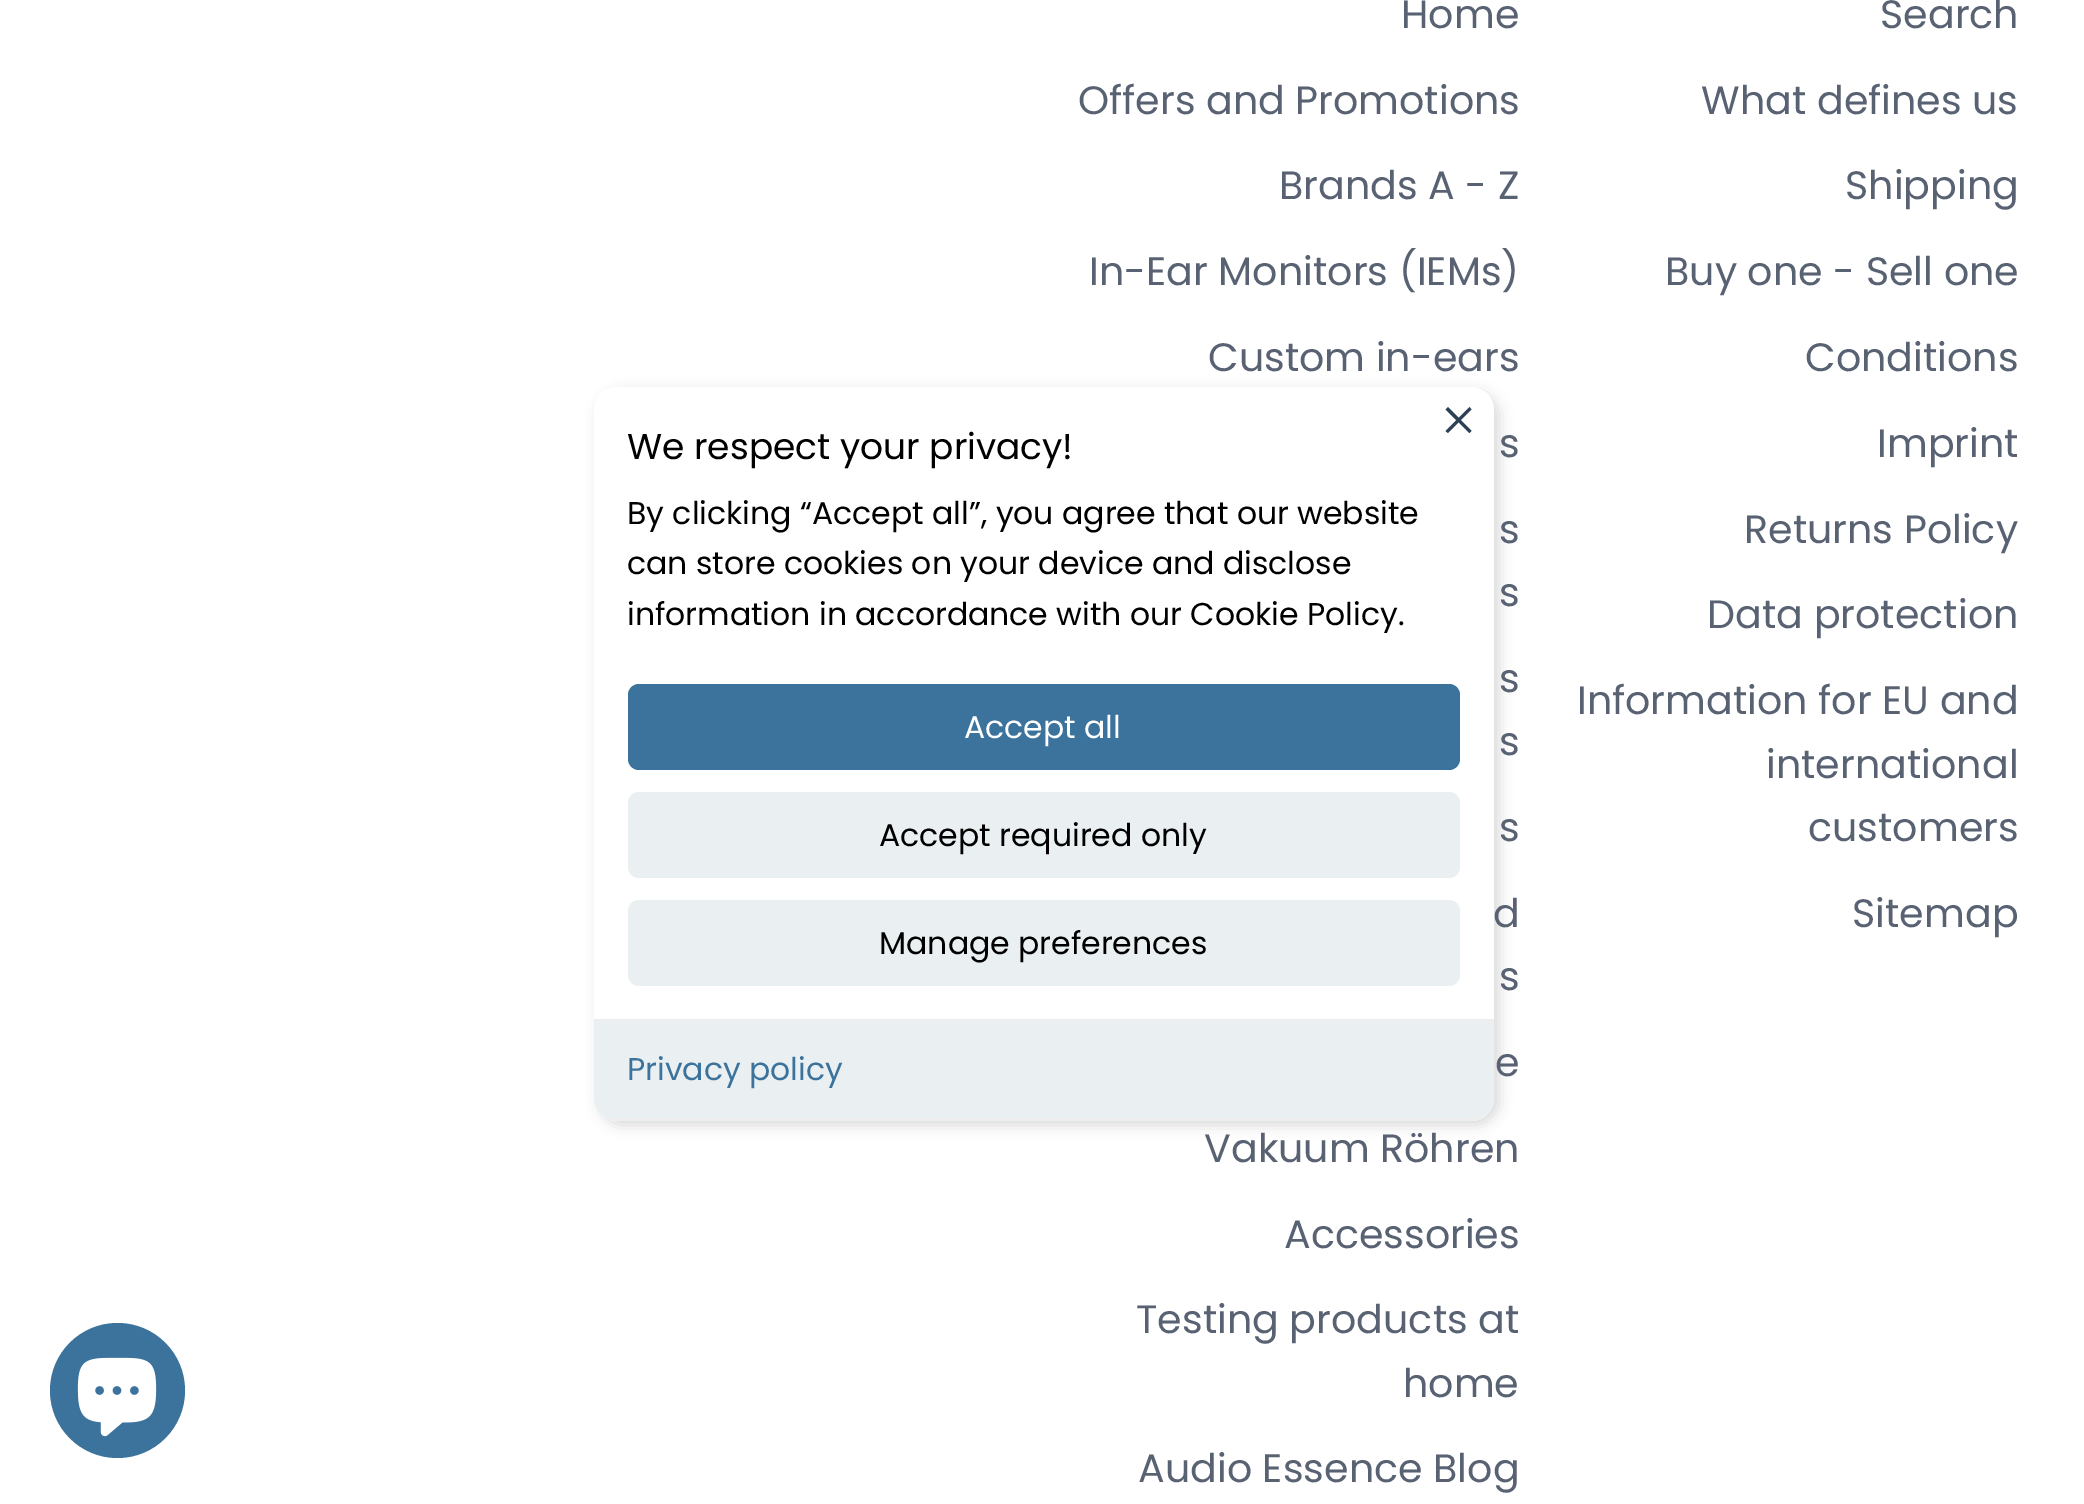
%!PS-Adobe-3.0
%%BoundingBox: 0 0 2084 1504
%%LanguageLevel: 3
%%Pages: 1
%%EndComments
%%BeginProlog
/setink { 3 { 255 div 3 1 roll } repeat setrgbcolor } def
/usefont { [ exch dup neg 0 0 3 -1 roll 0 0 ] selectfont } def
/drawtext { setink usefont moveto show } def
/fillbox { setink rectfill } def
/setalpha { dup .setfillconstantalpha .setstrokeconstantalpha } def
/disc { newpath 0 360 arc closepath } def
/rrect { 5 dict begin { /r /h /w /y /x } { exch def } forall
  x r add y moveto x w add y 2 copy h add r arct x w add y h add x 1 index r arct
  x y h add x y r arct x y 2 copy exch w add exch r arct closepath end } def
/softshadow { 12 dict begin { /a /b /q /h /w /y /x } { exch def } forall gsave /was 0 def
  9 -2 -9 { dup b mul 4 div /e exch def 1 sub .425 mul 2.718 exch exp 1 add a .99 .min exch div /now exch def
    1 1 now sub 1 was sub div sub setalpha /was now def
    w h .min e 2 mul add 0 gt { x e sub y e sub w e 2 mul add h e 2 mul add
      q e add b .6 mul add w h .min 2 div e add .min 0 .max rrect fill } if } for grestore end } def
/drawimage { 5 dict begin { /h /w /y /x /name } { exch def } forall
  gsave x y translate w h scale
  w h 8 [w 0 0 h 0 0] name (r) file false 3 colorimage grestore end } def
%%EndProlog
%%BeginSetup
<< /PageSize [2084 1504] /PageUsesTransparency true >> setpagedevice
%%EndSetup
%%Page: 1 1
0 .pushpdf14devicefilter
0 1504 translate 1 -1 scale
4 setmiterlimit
0 0 2084 1504 255 255 255 fillbox
0 0 0 setink
599 392 900 733 23 7 0.15 softshadow
255 255 255 setink
594 387 900 734 23 rrect fill
45 65 86 setink
1469.5 407 moveto 1471.5 409.5 lineto 1448 433 lineto 1445.5 431 lineto closepath fill
1445.5 409.5 moveto 1448 407 lineto 1471.5 431 lineto 1469.5 433 lineto closepath fill
(We respect your privacy!) 627 459 /Poppins-Regular 36 0 0 0 drawtext
(By clicking “Accept all”, you agree that our website) 627 524 /Poppins-Regular 31.5 0 0 0 drawtext
(can store cookies on your device and disclose) 627 574 /Poppins-Regular 31.5 0 0 0 drawtext
(information in accordance with our Cookie Policy.) 627 625 /Poppins-Regular 31.5 0 0 0 drawtext
60 115 156 setink
628 684 832 86 11 rrect fill
(Accept all) 964 738 /Poppins-Regular 31.5 255 255 255 drawtext
234 239 242 setink
628 792 832 86 11 rrect fill
(Accept required only) 879 846 /Poppins-Regular 31.5 0 0 0 drawtext
234 239 242 setink
628 900 832 86 11 rrect fill
(Manage preferences) 879 954 /Poppins-Regular 31.5 0 0 0 drawtext
234 239 242 setink
594 1019 moveto 1494 1019 lineto 1494 1098 lineto 1494 1110.5 1483.5 1121 1471 1121 curveto 617 1121 lineto 604.5 1121 594 1110.5 594 1098 curveto closepath fill
594 1019 900 2 238 238 238 fillbox
gsave
594 387 900 734 23 rrect clip newpath
605 1118 878 2 238 238 238 fillbox
grestore
(Privacy policy) 627 1080 /Poppins-Regular 31.5 60 115 156 drawtext
(Home) 1401 28 /Poppins-Regular 39.6 88 98 114 drawtext
(Offers and Promotions) 1078 114 /Poppins-Regular 39.6 88 98 114 drawtext
(Brands A - Z) 1279 199 /Poppins-Regular 39.6 88 98 114 drawtext
(In-Ear Monitors \(IEMs\)) 1089 285 /Poppins-Regular 39.6 88 98 114 drawtext
(Custom in-ears) 1208 371 /Poppins-Regular 39.6 88 98 114 drawtext
(s) 1499 457 /Poppins-Regular 39.6 88 98 114 drawtext
(s) 1499 543 /Poppins-Regular 39.6 88 98 114 drawtext
(s) 1499 606 /Poppins-Regular 39.6 88 98 114 drawtext
(s) 1499 692 /Poppins-Regular 39.6 88 98 114 drawtext
(s) 1499 755 /Poppins-Regular 39.6 88 98 114 drawtext
(s) 1499 841 /Poppins-Regular 39.6 88 98 114 drawtext
(d) 1493 927 /Poppins-Regular 39.6 88 98 114 drawtext
(s) 1499 990 /Poppins-Regular 39.6 88 98 114 drawtext
(e) 1495 1076 /Poppins-Regular 39.6 88 98 114 drawtext
(Vakuum Röhren) 1204 1162 /Poppins-Regular 39.6 88 98 114 drawtext
(Accessories) 1284 1248 /Poppins-Regular 39.6 88 98 114 drawtext
(Testing products at) 1136 1333 /Poppins-Regular 39.6 88 98 114 drawtext
(home) 1403 1397 /Poppins-Regular 39.6 88 98 114 drawtext
(Audio Essence Blog) 1138 1482 /Poppins-Regular 39.6 88 98 114 drawtext
(Search) 1880 28 /Poppins-Regular 39.6 88 98 114 drawtext
(What defines us) 1701 114 /Poppins-Regular 39.6 88 98 114 drawtext
(Shipping) 1845 199 /Poppins-Regular 39.6 88 98 114 drawtext
(Buy one - Sell one) 1665 285 /Poppins-Regular 39.6 88 98 114 drawtext
(Conditions) 1805 371 /Poppins-Regular 39.6 88 98 114 drawtext
(Imprint) 1877 457 /Poppins-Regular 39.6 88 98 114 drawtext
(Returns Policy) 1744 543 /Poppins-Regular 39.6 88 98 114 drawtext
(Data protection) 1707 628 /Poppins-Regular 39.6 88 98 114 drawtext
(Information for EU and) 1577 714 /Poppins-Regular 39.6 88 98 114 drawtext
(international) 1766 778 /Poppins-Regular 39.6 88 98 114 drawtext
(customers) 1808 841 /Poppins-Regular 39.6 88 98 114 drawtext
(Sitemap) 1852 927 /Poppins-Regular 39.6 88 98 114 drawtext
60 115 156 setink
117.5 1390.5 67.5 disc fill
(assets/img1.rgb) 77 1357 80 80 drawimage
.poppdf14devicefilter showpage
%%EOF
